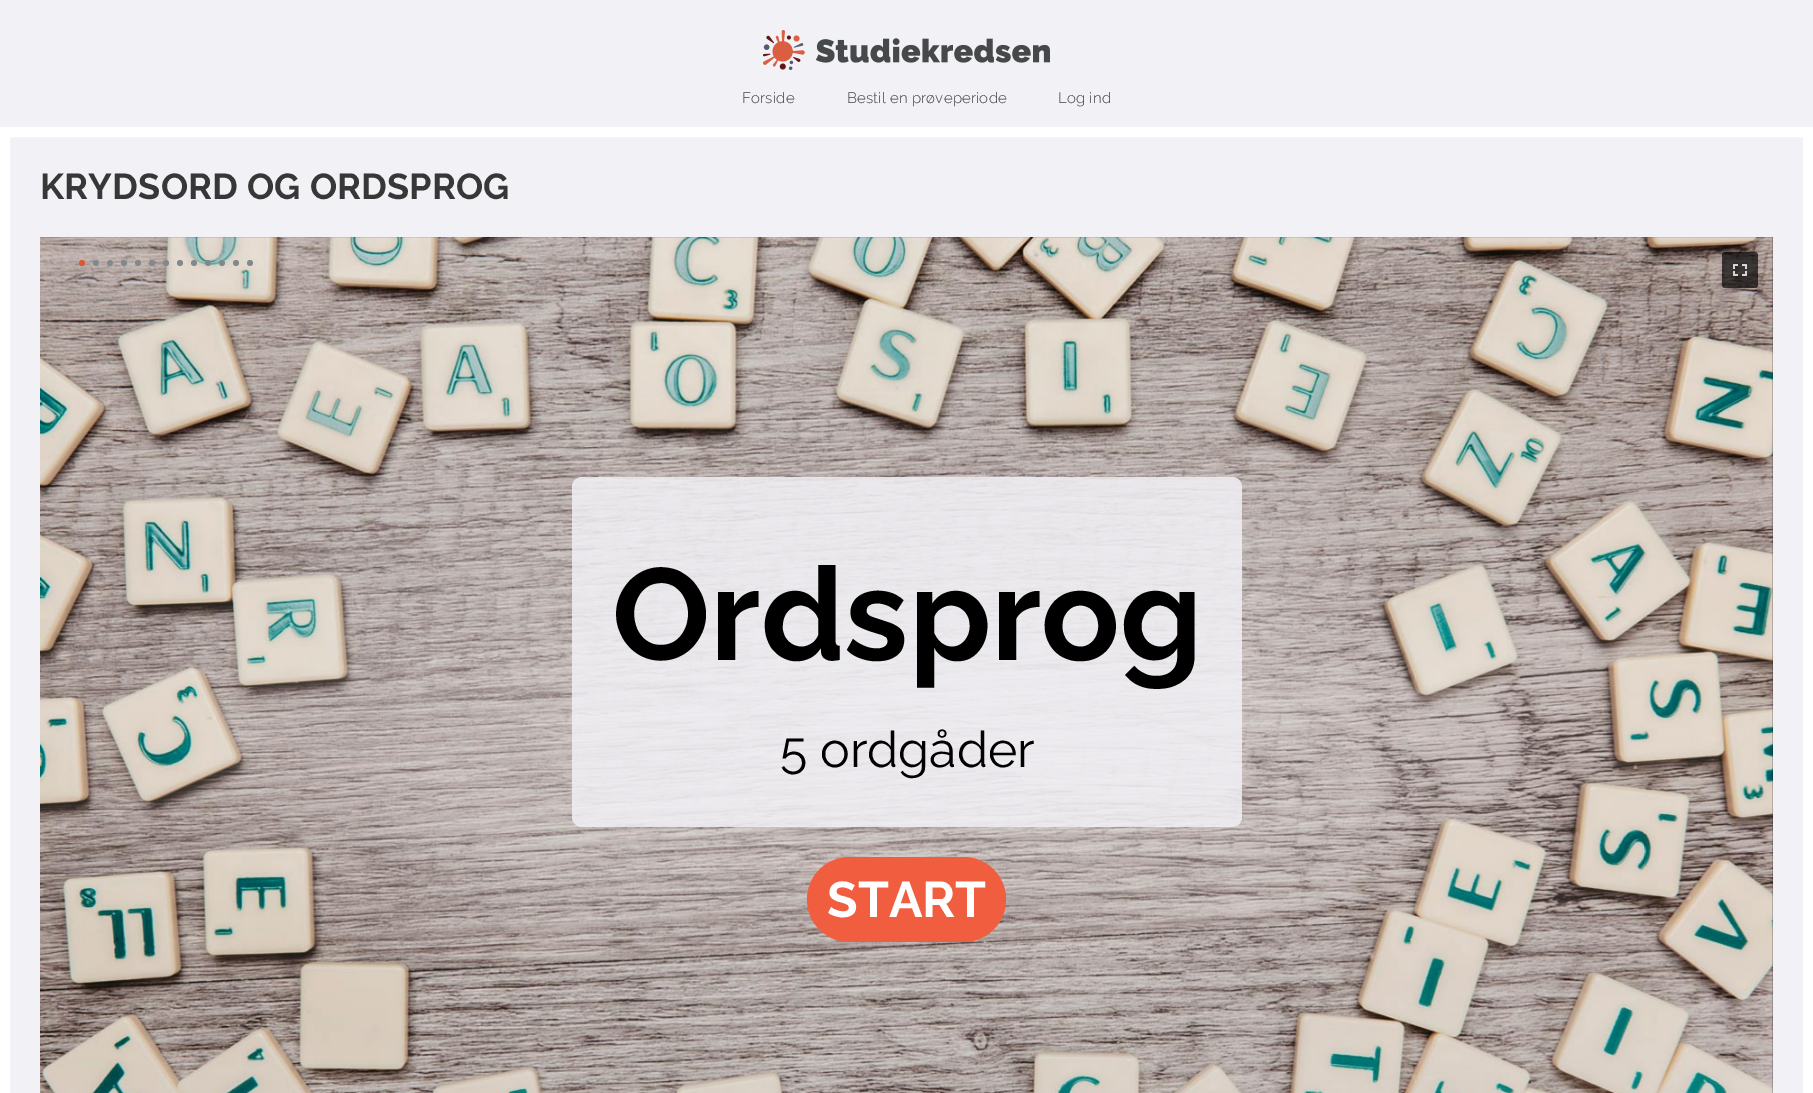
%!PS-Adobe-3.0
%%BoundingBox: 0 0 1813 1093
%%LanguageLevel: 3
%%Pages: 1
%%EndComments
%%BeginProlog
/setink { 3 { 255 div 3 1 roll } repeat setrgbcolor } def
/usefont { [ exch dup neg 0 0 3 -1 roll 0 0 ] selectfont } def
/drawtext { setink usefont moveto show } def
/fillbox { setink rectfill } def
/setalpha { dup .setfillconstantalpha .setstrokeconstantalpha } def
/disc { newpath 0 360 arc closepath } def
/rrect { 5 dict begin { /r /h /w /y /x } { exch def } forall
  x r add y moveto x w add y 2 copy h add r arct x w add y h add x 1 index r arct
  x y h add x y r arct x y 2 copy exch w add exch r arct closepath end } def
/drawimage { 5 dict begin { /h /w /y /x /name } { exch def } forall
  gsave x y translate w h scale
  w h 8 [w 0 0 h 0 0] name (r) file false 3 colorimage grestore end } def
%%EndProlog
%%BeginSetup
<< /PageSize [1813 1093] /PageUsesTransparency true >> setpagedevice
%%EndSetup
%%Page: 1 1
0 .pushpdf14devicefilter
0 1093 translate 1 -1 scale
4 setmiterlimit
0 0 1813 1093 242 241 246 fillbox
(assets/img1.rgb) 763 30 287 40 drawimage
/Raleway-Light 15 usefont
62 61 61 setink
742 103 moveto 0.2 0 (Forside) ashow
847 103 moveto 0.2 0 (Bestil en prøveperiode) ashow
1058 103 moveto 0.2 0 (Log ind) ashow
255 255 255 setink
10 setlinewidth
5 132 1803 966 rectstroke
/Raleway-Bold 36 usefont
55 55 55 setink
40 199 moveto 0.2 0 (KRYDSORD OG ORDSPROG) ashow
(assets/img3.rgb) 40 237 1733 856 drawimage
216 89 53 setink
82 263 3 disc fill
129 137 141 setink
96 263 3 disc fill
110 263 3 disc fill
124 263 3 disc fill
138 263 3 disc fill
152 263 3 disc fill
166 263 3 disc fill
180 263 3 disc fill
194 263 3 disc fill
208 263 3 disc fill
222 263 3 disc fill
236 263 3 disc fill
250 263 3 disc fill
0.67 setalpha
0 0 0 setink
1722 252 36 36 3 rrect fill
1 setalpha
(assets/img2.rgb) 1733 264 14 12 drawimage
0.84 setalpha
242 241 246 setink
572 477 670 350 10 rrect fill
1 setalpha
(Ordsprog) 612 660 /Raleway-Bold 130 0 0 0 drawtext
(5 ordgåder) 780 767 /Raleway-Regular 50 0 0 0 drawtext
240 93 63 setink
807 857 199 85 42.5 rrect fill
(START) 827 917 /Raleway-Bold 50 255 255 255 drawtext
.poppdf14devicefilter showpage
%%EOF
